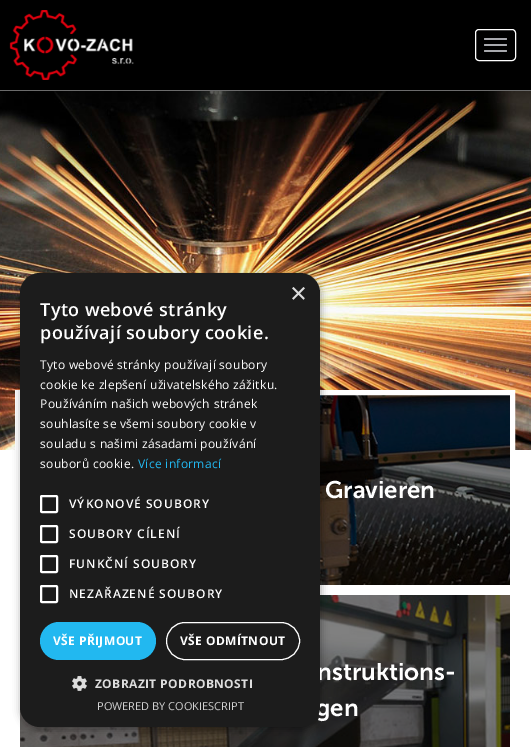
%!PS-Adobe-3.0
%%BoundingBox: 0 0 531 747
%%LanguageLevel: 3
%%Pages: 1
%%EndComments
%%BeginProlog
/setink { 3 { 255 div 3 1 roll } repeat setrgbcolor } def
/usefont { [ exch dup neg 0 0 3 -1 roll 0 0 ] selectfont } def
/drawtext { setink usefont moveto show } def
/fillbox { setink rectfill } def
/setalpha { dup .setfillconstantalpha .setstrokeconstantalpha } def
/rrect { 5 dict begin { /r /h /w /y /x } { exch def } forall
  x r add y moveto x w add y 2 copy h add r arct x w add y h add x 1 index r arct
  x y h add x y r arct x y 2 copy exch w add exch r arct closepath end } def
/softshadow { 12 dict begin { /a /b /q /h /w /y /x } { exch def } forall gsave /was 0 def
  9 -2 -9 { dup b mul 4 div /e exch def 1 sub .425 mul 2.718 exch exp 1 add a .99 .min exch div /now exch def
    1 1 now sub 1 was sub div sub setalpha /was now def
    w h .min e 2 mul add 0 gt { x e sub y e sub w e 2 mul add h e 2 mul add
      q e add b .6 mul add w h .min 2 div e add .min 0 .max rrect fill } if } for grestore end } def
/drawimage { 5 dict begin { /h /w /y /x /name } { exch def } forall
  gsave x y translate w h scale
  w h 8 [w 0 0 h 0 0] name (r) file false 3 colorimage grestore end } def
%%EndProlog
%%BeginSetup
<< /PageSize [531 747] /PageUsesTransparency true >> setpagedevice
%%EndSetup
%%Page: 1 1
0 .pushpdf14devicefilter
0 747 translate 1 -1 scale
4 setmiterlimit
0 0 531 747 255 255 255 fillbox
0 0 531 90 0 0 0 fillbox
0 90 531 1 107 107 107 fillbox
(assets/img1.rgb) 9 10 125 70 drawimage
255 255 255 setink
475.5 29.5 40 31 3.5 rrect stroke
168 169 174 setink
484 38 23 2 1 rrect fill
484 44 23 2 1 rrect fill
484 50 23 2 1 rrect fill
(assets/img2.rgb) 0 91 531 359 drawimage
(assets/img4.rgb) 320 395 190 190 drawimage
255 255 255 setink
5 setlinewidth
17.5 392.5 495 195 rectstroke
(assets/img5.rgb) 20 595 490 152 drawimage
0 0 0 setink
21 275 300 454 20 4 0.35 softshadow
(nstruktions-) 317 680 /MuseoSans-SemiBold 24 255 255 255 drawtext
(gen) 316 716 /MuseoSans-SemiBold 24 255 255 255 drawtext
28 28 28 setink
20 273 300 454 20 rrect fill
(×) 290 303 /LiberationSans-Regular 29 221 221 221 drawtext
/OpenSans-SemiBold 18 usefont
255 255 255 setink
40 316 moveto 0.4 0 (Tyto webové stránky) ashow
40 339 moveto 0.4 0 (používají soubory cookie.) ashow
/OpenSans-Regular 12 usefont
40 369 moveto 0.3 0 (Tyto webové stránky používají soubory) ashow
40 389 moveto 0.3 0 (cookie ke zlepšení uživatelského zážitku.) ashow
40 408 moveto 0.3 0 (Používáním našich webových stránek) ashow
40 428 moveto 0.3 0 (souhlasíte se všemi soubory cookie v) ashow
40 448 moveto 0.3 0 (souladu s našimi zásadami používání) ashow
40 468 moveto 0.3 0 (souborů cookie.) ashow
34 184 240 setink
138 468 moveto 0.3 0 (Více informací) ashow
255 255 255 setink
2 setlinewidth
41 496 16 16 1 rrect stroke
/OpenSans-SemiBold 12 usefont
69 508 moveto 1 0 (VÝKONOVÉ SOUBORY) ashow
41 526 16 16 1 rrect stroke
69 538 moveto 1 0 (SOUBORY CÍLENÍ) ashow
41 556 16 16 1 rrect stroke
69 568 moveto 1 0 (FUNKČNÍ SOUBORY) ashow
41 586 16 16 1 rrect stroke
69 598 moveto 1 0 (NEZAŘAZENÉ SOUBORY) ashow
34 184 240 setink
40 622 116 38 19 rrect fill
/OpenSans-Bold 12 usefont
255 255 255 setink
53 645 moveto 0.4 0 (VŠE PŘIJMOUT) ashow
1 setlinewidth
166.5 622.5 133 37 18.5 rrect stroke
180 645 moveto 0.4 0 (VŠE ODMÍTNOUT) ashow
(assets/img3.rgb) 72 676 15 15 drawimage
221 221 221 setink
95 688 moveto 0.4 0 (ZOBRAZIT PODROBNOSTI) ashow
(POWERED BY COOKIESCRIPT) 97 710 /OpenSans-Regular 11 210 210 210 drawtext
(Gravieren) 325 498 /MuseoSans-SemiBold 24 255 255 255 drawtext
.poppdf14devicefilter showpage
%%EOF
